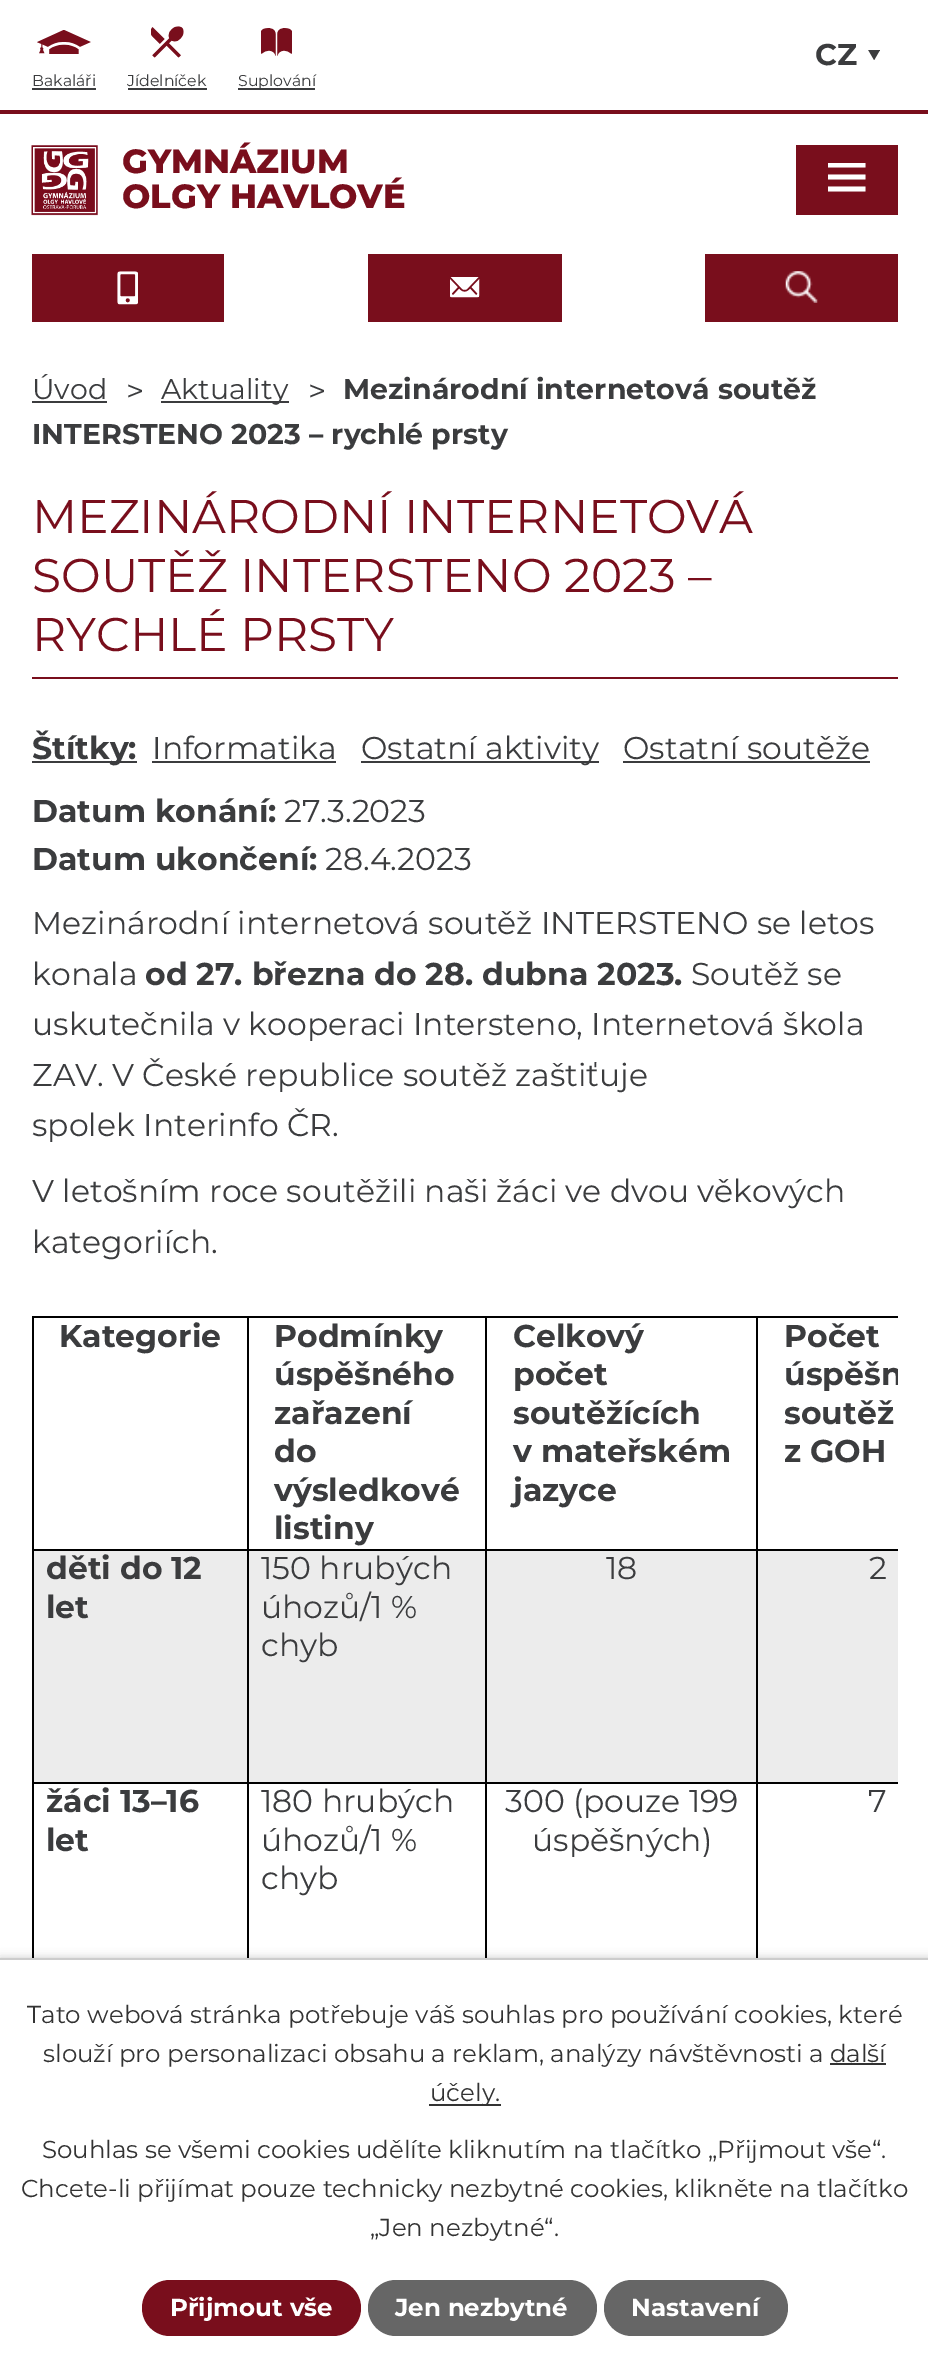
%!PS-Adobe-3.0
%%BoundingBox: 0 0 928 2368
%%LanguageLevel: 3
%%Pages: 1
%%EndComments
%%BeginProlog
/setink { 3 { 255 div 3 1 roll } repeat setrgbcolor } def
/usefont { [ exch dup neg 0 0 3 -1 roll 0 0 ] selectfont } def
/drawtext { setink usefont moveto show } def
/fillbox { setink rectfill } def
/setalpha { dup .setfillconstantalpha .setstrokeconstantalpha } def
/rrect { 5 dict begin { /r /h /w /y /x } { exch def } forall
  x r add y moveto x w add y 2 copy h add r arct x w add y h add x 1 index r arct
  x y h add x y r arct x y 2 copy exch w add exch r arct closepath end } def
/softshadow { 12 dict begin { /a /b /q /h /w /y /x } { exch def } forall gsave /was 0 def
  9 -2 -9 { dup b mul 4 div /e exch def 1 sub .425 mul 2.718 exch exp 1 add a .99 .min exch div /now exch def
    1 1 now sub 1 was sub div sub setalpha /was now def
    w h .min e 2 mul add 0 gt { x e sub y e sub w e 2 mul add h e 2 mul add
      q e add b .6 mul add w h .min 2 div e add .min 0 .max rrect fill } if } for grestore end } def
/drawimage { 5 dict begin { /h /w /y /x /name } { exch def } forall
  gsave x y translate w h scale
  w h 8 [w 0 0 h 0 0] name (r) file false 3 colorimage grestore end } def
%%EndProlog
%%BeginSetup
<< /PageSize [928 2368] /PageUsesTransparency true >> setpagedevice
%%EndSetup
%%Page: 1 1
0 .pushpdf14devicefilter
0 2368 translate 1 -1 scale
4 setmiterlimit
0 0 928 2368 255 255 255 fillbox
0 110 928 4 121 14 28 fillbox
(CZ) 815 65 /Montserrat-Bold 30 59 60 62 drawtext
(assets/img1.rgb) 868 50 12 10 drawimage
(assets/img2.rgb) 37 30 54 24 drawimage
(Bakaláři) 32 86 /Montserrat-Regular 15.75 59 60 62 drawtext
32 88 64 2 59 60 62 fillbox
(assets/img3.rgb) 151 26 33 32 drawimage
(Jídelníček) 127 86 /Montserrat-Regular 15.75 59 60 62 drawtext
128 88 79 2 59 60 62 fillbox
(assets/img4.rgb) 261 28 31 28 drawimage
238 88 77 2 59 60 62 fillbox
(Suplování) 238 86 /Montserrat-Regular 15.75 59 60 62 drawtext
(assets/img5.rgb) 31 145 67 71 drawimage
(GYMNÁZIUM) 122 173 /Montserrat-ExtraBold 33.5 121 14 28 drawtext
(OLGY HAVLOVÉ) 122 208 /Montserrat-ExtraBold 33.5 121 14 28 drawtext
32 254 192 68 121 14 28 fillbox
(assets/img6.rgb) 117 271 21 34 drawimage
368 254 194 68 121 14 28 fillbox
(assets/img7.rgb) 450 277 30 21 drawimage
705 254 193 68 121 14 28 fillbox
(assets/img8.rgb) 785 271 33 32 drawimage
796 145 102 70 121 14 28 fillbox
255 255 255 setink
828 191.5 moveto 828 186.5 lineto 865.5 186.5 lineto 865.5 191.5 lineto closepath 828 163 moveto 865.5 163 lineto 865.5 167.5 lineto 828 167.5 lineto closepath 828 179.5 moveto 828 174.5 lineto 865.5 174.5 lineto 865.5 179.5 lineto closepath fill
(Úvod) 32 399 /Montserrat-Regular 28.4 59 60 62 drawtext
32 401 75 2 59 60 62 fillbox
(>) 126 402 /Montserrat-Regular 31.5 59 60 62 drawtext
161 401 128 2 59 60 62 fillbox
(Aktuality) 161 399 /Montserrat-Regular 28.4 59 60 62 drawtext
(>) 308 402 /Montserrat-Regular 31.5 59 60 62 drawtext
(Mezinárodní internetová soutěž) 343 399 /Montserrat-Bold 28.4 59 60 62 drawtext
(INTERSTENO 2023 – rychlé prsty) 32 444 /Montserrat-Bold 28.4 59 60 62 drawtext
32 677 866 2 121 14 28 fillbox
(MEZINÁRODNÍ INTERNETOVÁ) 32 533 /Montserrat-Regular 47.25 121 14 28 drawtext
(SOUTĚŽ INTERSTENO 2023 –) 32 592 /Montserrat-Regular 47.25 121 14 28 drawtext
(RYCHLÉ PRSTY) 32 651 /Montserrat-Regular 47.25 121 14 28 drawtext
32 761 105 2 59 60 62 fillbox
(Štítky:) 32 759 /Montserrat-Bold 31.5 59 60 62 drawtext
(Informatika) 152 759 /Montserrat-Regular 31.5 59 60 62 drawtext
152 761 184 2 59 60 62 fillbox
361 761 238 2 59 60 62 fillbox
(Ostatní aktivity) 361 759 /Montserrat-Regular 31.5 59 60 62 drawtext
(Ostatní soutěže) 623 759 /Montserrat-Regular 31.5 59 60 62 drawtext
623 761 247 2 59 60 62 fillbox
(Datum konání:) 32 822 /Montserrat-Bold 31.5 59 60 62 drawtext
(27.3.2023) 284 822 /Montserrat-Regular 31.5 59 60 62 drawtext
(Datum ukončení:) 32 870 /Montserrat-Bold 31.5 59 60 62 drawtext
(28.4.2023) 325 870 /Montserrat-Regular 31.5 59 60 62 drawtext
(Mezinárodní internetová soutěž INTERSTENO se letos) 32 934 /Montserrat-Regular 31.5 59 60 62 drawtext
(konala) 32 985 /Montserrat-Regular 31.5 59 60 62 drawtext
(od 27. března do 28. dubna 2023.) 145 985 /Montserrat-Bold 31.5 59 60 62 drawtext
(Soutěž se) 691 985 /Montserrat-Regular 31.5 59 60 62 drawtext
(uskutečnila v kooperaci Intersteno, Internetová škola) 32 1035 /Montserrat-Regular 31.5 59 60 62 drawtext
(ZAV. V České republice soutěž zaštiťuje) 32 1086 /Montserrat-Regular 31.5 59 60 62 drawtext
(spolek Interinfo ČR.) 32 1136 /Montserrat-Regular 31.5 59 60 62 drawtext
(V letošním roce soutěžili naši žáci ve dvou věkových) 32 1202 /Montserrat-Regular 31.5 59 60 62 drawtext
(kategoriích.) 32 1253 /Montserrat-Regular 31.5 59 60 62 drawtext
32 1316 866 2 0 0 0 fillbox
34 1551 864 231 236 236 236 fillbox
756 1782 2 176 0 0 0 fillbox
756 1782 142 2 0 0 0 fillbox
756 1549 2 234 0 0 0 fillbox
756 1549 142 2 0 0 0 fillbox
756 1316 2 235 0 0 0 fillbox
485 1782 2 176 0 0 0 fillbox
485 1782 273 2 0 0 0 fillbox
485 1549 2 234 0 0 0 fillbox
485 1549 273 2 0 0 0 fillbox
485 1316 2 235 0 0 0 fillbox
247 1782 2 176 0 0 0 fillbox
247 1782 240 2 0 0 0 fillbox
247 1549 2 234 0 0 0 fillbox
247 1549 240 2 0 0 0 fillbox
247 1316 2 235 0 0 0 fillbox
32 1782 2 176 0 0 0 fillbox
32 1782 217 2 0 0 0 fillbox
32 1549 2 234 0 0 0 fillbox
32 1549 217 2 0 0 0 fillbox
32 1316 2 235 0 0 0 fillbox
(Kategorie) 59 1347 /Montserrat-Bold 31.5 59 60 62 drawtext
(Podmínky) 274 1347 /Montserrat-Bold 31.5 59 60 62 drawtext
(úspěšného) 274 1385 /Montserrat-Bold 31.5 59 60 62 drawtext
(zařazení) 274 1424 /Montserrat-Bold 31.5 59 60 62 drawtext
(do) 274 1462 /Montserrat-Bold 31.5 59 60 62 drawtext
(výsledkové) 274 1501 /Montserrat-Bold 31.5 59 60 62 drawtext
(listiny) 274 1539 /Montserrat-Bold 31.5 59 60 62 drawtext
(Celkový) 513 1347 /Montserrat-Bold 31.5 59 60 62 drawtext
(počet) 513 1385 /Montserrat-Bold 31.5 59 60 62 drawtext
(soutěžících) 513 1424 /Montserrat-Bold 31.5 59 60 62 drawtext
(v mateřském) 513 1462 /Montserrat-Bold 31.5 59 60 62 drawtext
(jazyce) 513 1501 /Montserrat-Bold 31.5 59 60 62 drawtext
(Počet) 784 1347 /Montserrat-Bold 31.5 59 60 62 drawtext
gsave
32 1285 866 878 rectclip
(úspěšn) 784 1385 /Montserrat-Bold 31.5 59 60 62 drawtext
grestore
(soutěž) 784 1424 /Montserrat-Bold 31.5 59 60 62 drawtext
(z GOH) 784 1462 /Montserrat-Bold 31.5 59 60 62 drawtext
(děti do 12) 46 1579 /Montserrat-Bold 31.5 59 60 62 drawtext
(let) 46 1618 /Montserrat-Bold 31.5 59 60 62 drawtext
(150 hrubých) 261 1579 /Montserrat-Regular 31.5 59 60 62 drawtext
(úhozů/1 %) 261 1618 /Montserrat-Regular 31.5 59 60 62 drawtext
(chyb) 261 1656 /Montserrat-Regular 31.5 59 60 62 drawtext
(18) 606 1579 /Montserrat-Regular 31.5 59 60 62 drawtext
(2) 869 1579 /Montserrat-Regular 31.5 59 60 62 drawtext
(žáci 13–16) 46 1812 /Montserrat-Bold 31.5 59 60 62 drawtext
(let) 46 1851 /Montserrat-Bold 31.5 59 60 62 drawtext
(180 hrubých) 261 1812 /Montserrat-Regular 31.5 59 60 62 drawtext
(úhozů/1 %) 261 1851 /Montserrat-Regular 31.5 59 60 62 drawtext
(chyb) 261 1889 /Montserrat-Regular 31.5 59 60 62 drawtext
(300 \(pouze 199) 505 1812 /Montserrat-Regular 31.5 59 60 62 drawtext
(úspěšných\)) 532 1851 /Montserrat-Regular 31.5 59 60 62 drawtext
(7) 868 1812 /Montserrat-Regular 31.5 59 60 62 drawtext
0 0 0 setink
0 1958 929 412 0 4.5 0.2 softshadow
0 1960 928 408 255 255 255 fillbox
0 1958 928 2 204 204 204 fillbox
(Tato webová stránka potřebuje váš souhlas pro používání cookies, které) 27 2023 /Montserrat-Regular 24.5 51 51 51 drawtext
(slouží pro personalizaci obsahu a reklam, analýzy návštěvnosti a další) 43 2062 /Montserrat-Regular 24.5 51 51 51 drawtext
429 2104 72 2 51 51 51 fillbox
(účely.) 430 2101 /Montserrat-Regular 24.5 51 51 51 drawtext
830 2063 56 2 51 51 51 fillbox
(Souhlas se všemi cookies udělíte kliknutím na tlačítko „Přijmout vše“.) 42 2158 /Montserrat-Regular 24.5 51 51 51 drawtext
(Chcete-li přijímat pouze technicky nezbytné cookies, klikněte na tlačítko) 21 2197 /Montserrat-Regular 24.5 51 51 51 drawtext
(„Jen nezbytné“.) 370 2236 /Montserrat-Regular 24.5 51 51 51 drawtext
121 14 28 setink
142 2280 219 56 28 rrect fill
(Přijmout vše) 170 2316 /Montserrat-Bold 24.5 255 255 255 drawtext
102 102 102 setink
368 2280 229 56 28 rrect fill
(Jen nezbytné) 395 2316 /Montserrat-Bold 24.5 255 255 255 drawtext
102 102 102 setink
604 2280 184 56 28 rrect fill
(Nastavení) 631 2316 /Montserrat-Bold 24.5 255 255 255 drawtext
.poppdf14devicefilter showpage
%%EOF
